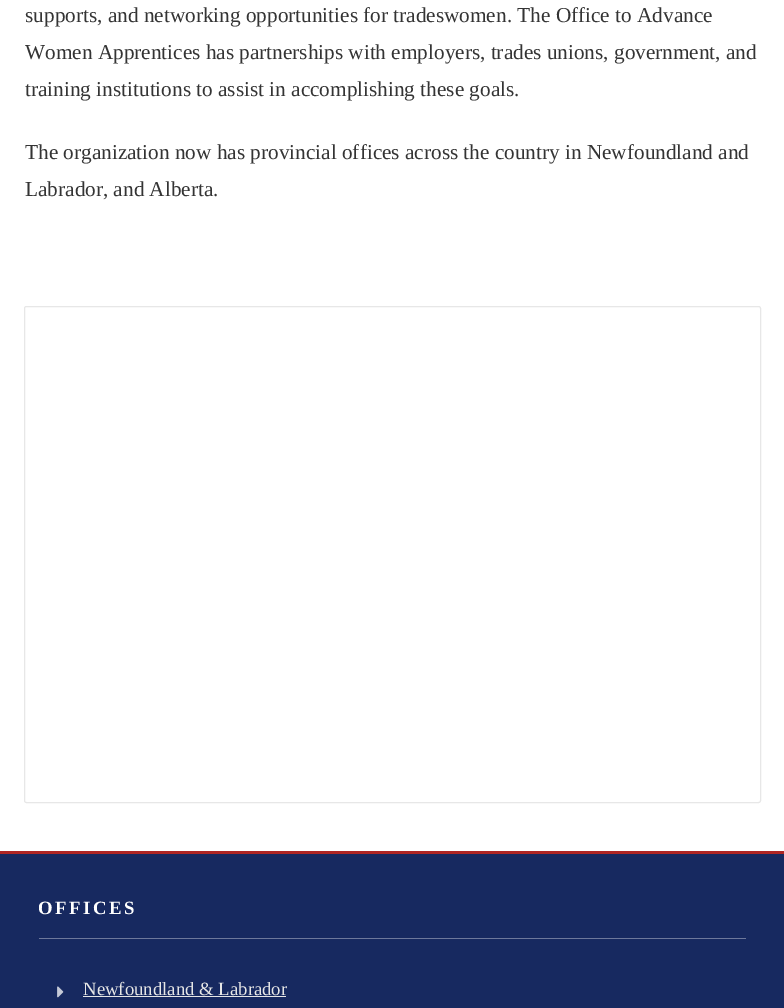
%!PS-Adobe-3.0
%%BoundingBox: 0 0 784 1008
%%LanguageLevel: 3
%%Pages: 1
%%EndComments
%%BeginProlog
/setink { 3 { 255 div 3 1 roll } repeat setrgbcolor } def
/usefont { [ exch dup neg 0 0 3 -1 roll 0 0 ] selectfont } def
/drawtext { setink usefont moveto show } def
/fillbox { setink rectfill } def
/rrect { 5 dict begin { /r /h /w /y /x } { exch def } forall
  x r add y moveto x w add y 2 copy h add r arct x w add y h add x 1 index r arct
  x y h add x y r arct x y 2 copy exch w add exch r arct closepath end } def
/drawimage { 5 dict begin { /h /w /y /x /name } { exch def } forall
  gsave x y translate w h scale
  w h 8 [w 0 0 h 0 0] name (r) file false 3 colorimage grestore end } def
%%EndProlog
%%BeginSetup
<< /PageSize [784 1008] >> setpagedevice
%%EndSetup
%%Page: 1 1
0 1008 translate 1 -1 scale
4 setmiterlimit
0 0 784 1008 255 255 255 fillbox
(supports, and networking opportunities for tradeswomen. The Office to Advance) 25 22 /LiberationSerif-Regular 21.25 52 52 52 drawtext
(Women Apprentices has partnerships with employers, trades unions, government, and) 25 59 /LiberationSerif-Regular 21.25 52 52 52 drawtext
(training institutions to assist in accomplishing these goals.) 25 96 /LiberationSerif-Regular 21.25 52 52 52 drawtext
(The organization now has provincial offices across the country in Newfoundland and) 25 159 /LiberationSerif-Regular 21.25 52 52 52 drawtext
(Labrador, and Alberta.) 25 196 /LiberationSerif-Regular 21.25 52 52 52 drawtext
231 231 231 setink
24.5 306.5 736 496 2 rrect stroke
0 851 784 3 175 37 35 fillbox
0 854 784 154 23 41 96 fillbox
/LiberationSerif-Bold 18.75 usefont
255 255 255 setink
38 914 moveto 2.5 0 (OFFICES) ashow
39 938 707 1 109 120 155 fillbox
(assets/img1.rgb) 57 986 7 12 drawimage
(Newfoundland & Labrador) 83 995 /LiberationSerif-Regular 18.75 230 230 230 drawtext
83 996 203 1 230 230 230 fillbox
showpage
%%EOF
